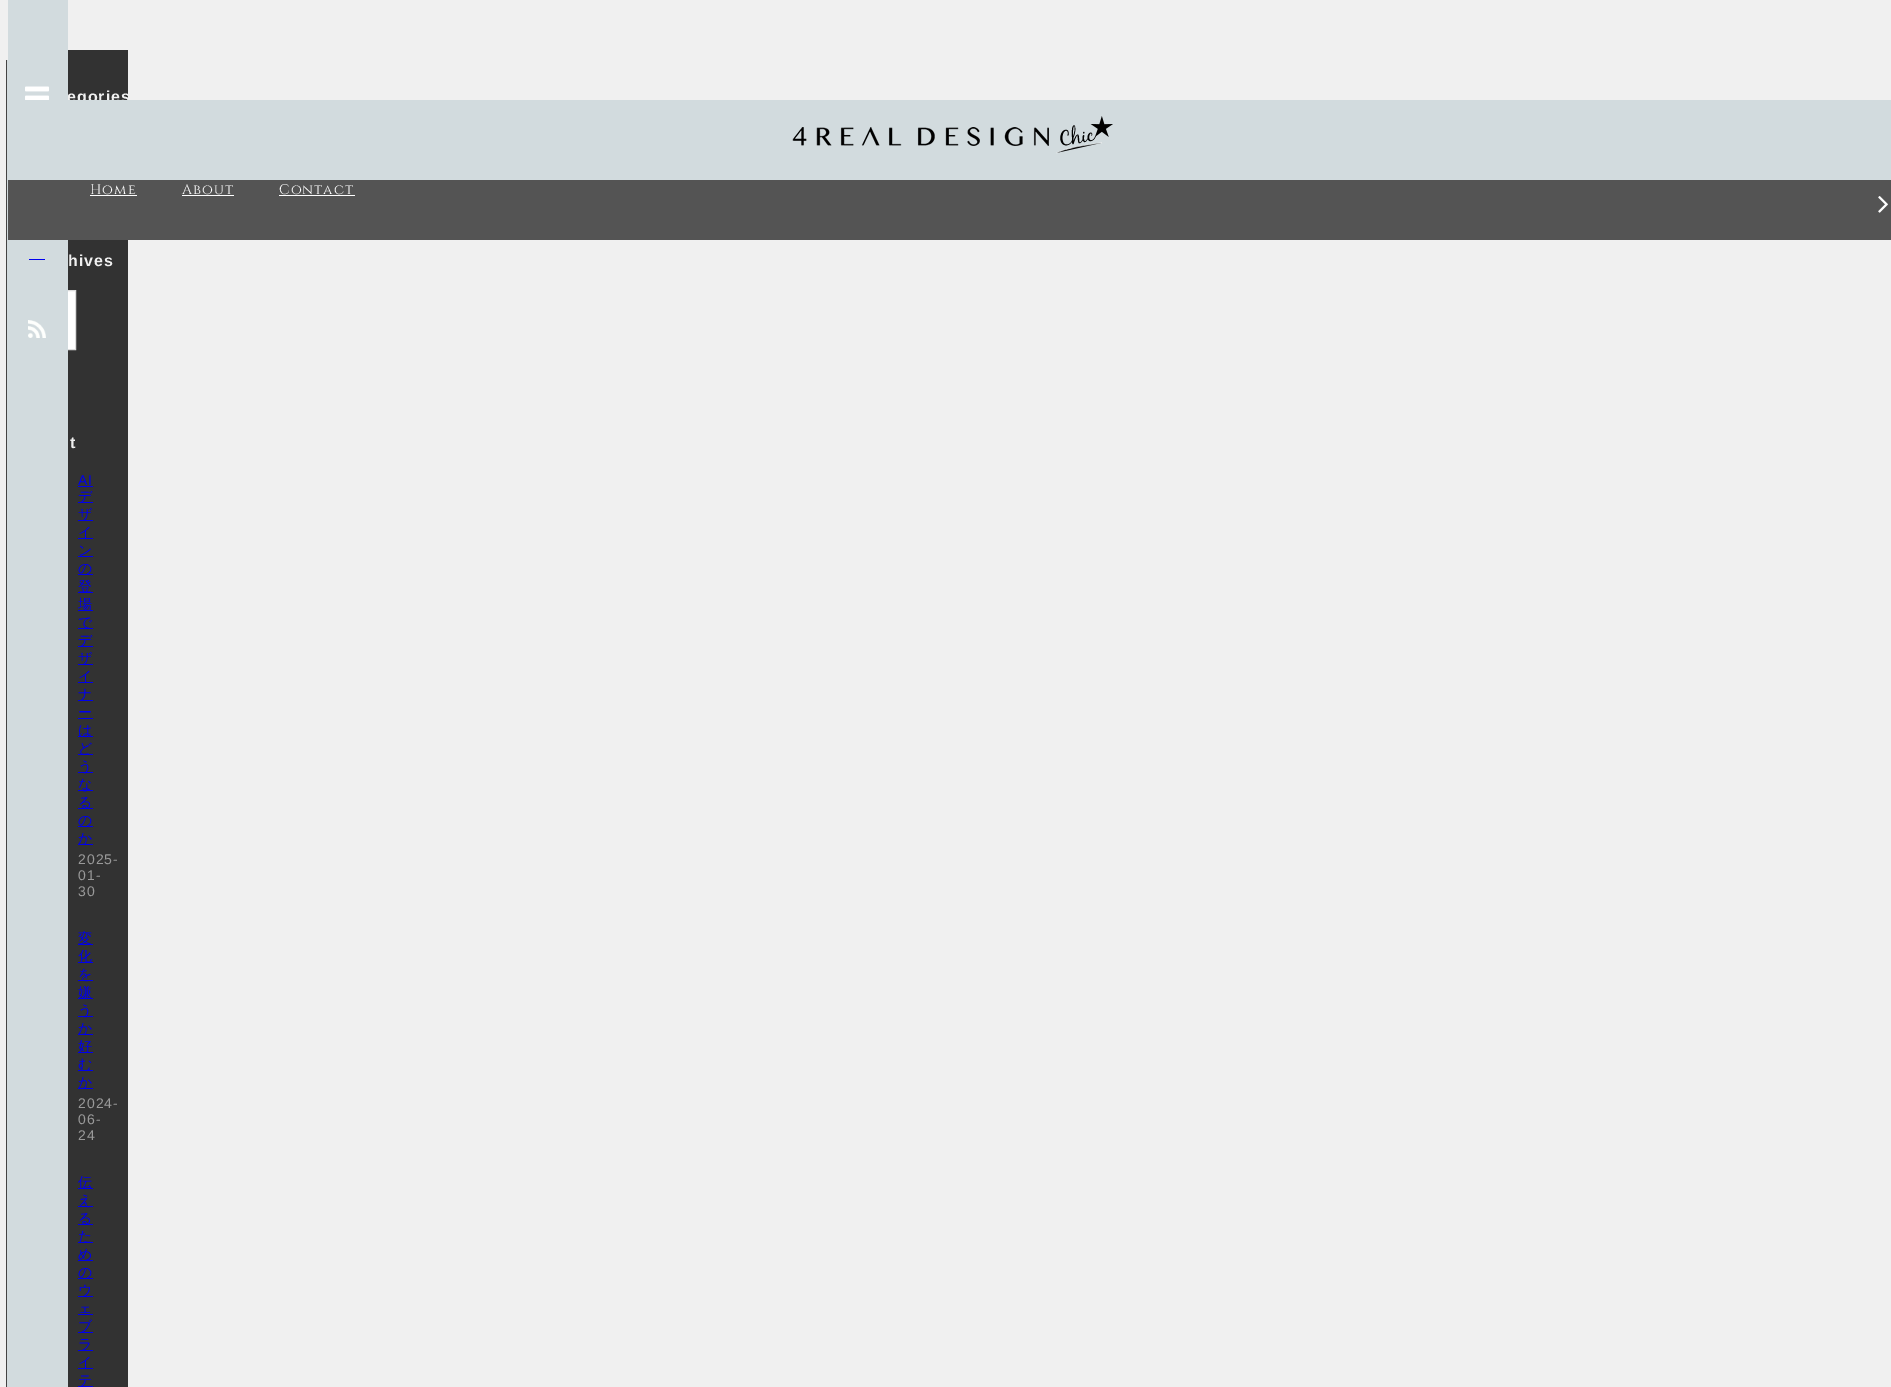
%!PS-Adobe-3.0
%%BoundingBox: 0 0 1891 1387
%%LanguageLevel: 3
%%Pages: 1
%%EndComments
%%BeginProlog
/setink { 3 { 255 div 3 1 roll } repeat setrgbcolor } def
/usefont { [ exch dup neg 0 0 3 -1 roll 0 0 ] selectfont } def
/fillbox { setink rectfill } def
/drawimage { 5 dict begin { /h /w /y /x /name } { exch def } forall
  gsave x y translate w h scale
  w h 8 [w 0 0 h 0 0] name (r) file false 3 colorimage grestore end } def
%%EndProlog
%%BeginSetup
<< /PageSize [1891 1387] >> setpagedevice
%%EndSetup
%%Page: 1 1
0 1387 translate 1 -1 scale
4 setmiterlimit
0 0 1891 1387 240 240 240 fillbox
8 0 60 60 210 219 222 fillbox
68 50 60 1337 50 50 50 fillbox
/LiberationSans-Bold 16 usefont
240 240 240 setink
67 102 moveto 1 0 (egories) ashow
68 291 7 58 255 255 255 fillbox
221 221 221 setink
38.5 290.5 37 59 rectstroke
7 60 61 1327 210 219 222 fillbox
6 60 1 1327 68 68 68 fillbox
(assets/img1.rgb) 25 86 24 14 drawimage
29 259 16 1 0 0 238 fillbox
(assets/img2.rgb) 28 320 18 18 drawimage
240 240 240 setink
68 266 moveto 1 0 (hives) ashow
70 448 moveto 1 0 (t) ashow
/LiberationSans-Regular 14 usefont
0 0 238 setink
78 485 moveto 1 0 (AI) ashow
78 486 15 1 0 0 238 fillbox
78 502 15 1 0 0 238 fillbox
/WenQuanYiZenHei-Medium 14 usefont
78 501 moveto 1 0 (デ) ashow
78 520 15 1 0 0 238 fillbox
78 519 moveto 1 0 (ザ) ashow
78 538 15 1 0 0 238 fillbox
78 537 moveto 1 0 (イ) ashow
78 555 moveto 1 0 (ン) ashow
78 556 15 1 0 0 238 fillbox
78 574 15 1 0 0 238 fillbox
78 573 moveto 1 0 (の) ashow
78 592 15 1 0 0 238 fillbox
78 591 moveto 1 0 (登) ashow
78 610 15 1 0 0 238 fillbox
78 609 moveto 1 0 (場) ashow
78 628 15 1 0 0 238 fillbox
78 627 moveto 1 0 (で) ashow
78 646 15 1 0 0 238 fillbox
78 645 moveto 1 0 (デ) ashow
78 664 15 1 0 0 238 fillbox
78 663 moveto 1 0 (ザ) ashow
78 682 15 1 0 0 238 fillbox
78 681 moveto 1 0 (イ) ashow
78 700 15 1 0 0 238 fillbox
78 699 moveto 1 0 (ナ) ashow
78 717 moveto 1 0 (ー) ashow
78 718 15 1 0 0 238 fillbox
78 736 15 1 0 0 238 fillbox
78 735 moveto 1 0 (は) ashow
78 754 15 1 0 0 238 fillbox
78 753 moveto 1 0 (ど) ashow
78 772 15 1 0 0 238 fillbox
78 771 moveto 1 0 (う) ashow
78 790 15 1 0 0 238 fillbox
78 789 moveto 1 0 (な) ashow
78 808 15 1 0 0 238 fillbox
78 807 moveto 1 0 (る) ashow
78 826 15 1 0 0 238 fillbox
78 825 moveto 1 0 (の) ashow
78 844 15 1 0 0 238 fillbox
78 843 moveto 1 0 (か) ashow
/LiberationSans-Regular 14 usefont
153 153 153 setink
78 864 moveto 1 0 (2025-) ashow
78 880 moveto 1 0 (01-) ashow
78 896 moveto 1 0 (30) ashow
78 944 15 1 0 0 238 fillbox
/WenQuanYiZenHei-Medium 14 usefont
78 943 moveto 1 0 (変) ashow
78 962 15 1 0 0 238 fillbox
78 961 moveto 1 0 (化) ashow
78 980 15 1 0 0 238 fillbox
78 979 moveto 1 0 (を) ashow
78 998 15 1 0 0 238 fillbox
78 997 moveto 1 0 (嫌) ashow
78 1016 15 1 0 0 238 fillbox
78 1015 moveto 1 0 (う) ashow
78 1034 15 1 0 0 238 fillbox
78 1033 moveto 1 0 (か) ashow
78 1052 15 1 0 0 238 fillbox
78 1051 moveto 1 0 (好) ashow
78 1070 15 1 0 0 238 fillbox
78 1069 moveto 1 0 (む) ashow
78 1088 15 1 0 0 238 fillbox
78 1087 moveto 1 0 (か) ashow
/LiberationSans-Regular 14 usefont
153 153 153 setink
78 1108 moveto 1 0 (2024-) ashow
78 1124 moveto 1 0 (06-) ashow
78 1140 moveto 1 0 (24) ashow
78 1188 15 1 0 0 238 fillbox
/WenQuanYiZenHei-Medium 14 usefont
78 1187 moveto 1 0 (伝) ashow
78 1206 15 1 0 0 238 fillbox
78 1205 moveto 1 0 (え) ashow
78 1224 15 1 0 0 238 fillbox
78 1223 moveto 1 0 (る) ashow
78 1242 15 1 0 0 238 fillbox
78 1241 moveto 1 0 (た) ashow
78 1260 15 1 0 0 238 fillbox
78 1259 moveto 1 0 (め) ashow
78 1278 15 1 0 0 238 fillbox
78 1277 moveto 1 0 (の) ashow
78 1296 15 1 0 0 238 fillbox
78 1295 moveto 1 0 (ウ) ashow
78 1313 moveto 1 0 (ェ) ashow
78 1314 15 1 0 0 238 fillbox
78 1332 15 1 0 0 238 fillbox
78 1331 moveto 1 0 (ブ) ashow
78 1350 15 1 0 0 238 fillbox
78 1349 moveto 1 0 (ラ) ashow
78 1368 15 1 0 0 238 fillbox
78 1367 moveto 1 0 (イ) ashow
78 1386 15 1 0 0 238 fillbox
78 1385 moveto 1 0 (テ) ashow
68 100 1823 80 210 219 222 fillbox
(assets/img3.rgb) 792 116 321 38 drawimage
8 180 1883 60 84 84 84 fillbox
/Cinzel-Regular 14 usefont
255 255 255 setink
90 194 moveto 1 0 (Home) ashow
90 195 47 1 255 255 255 fillbox
182 194 moveto 1 0 (About) ashow
182 195 52 1 255 255 255 fillbox
279 194 moveto 1 0 (Contact) ashow
279 195 76 1 255 255 255 fillbox
(assets/img4.rgb) 1878 196 10 17 drawimage
showpage
%%EOF
